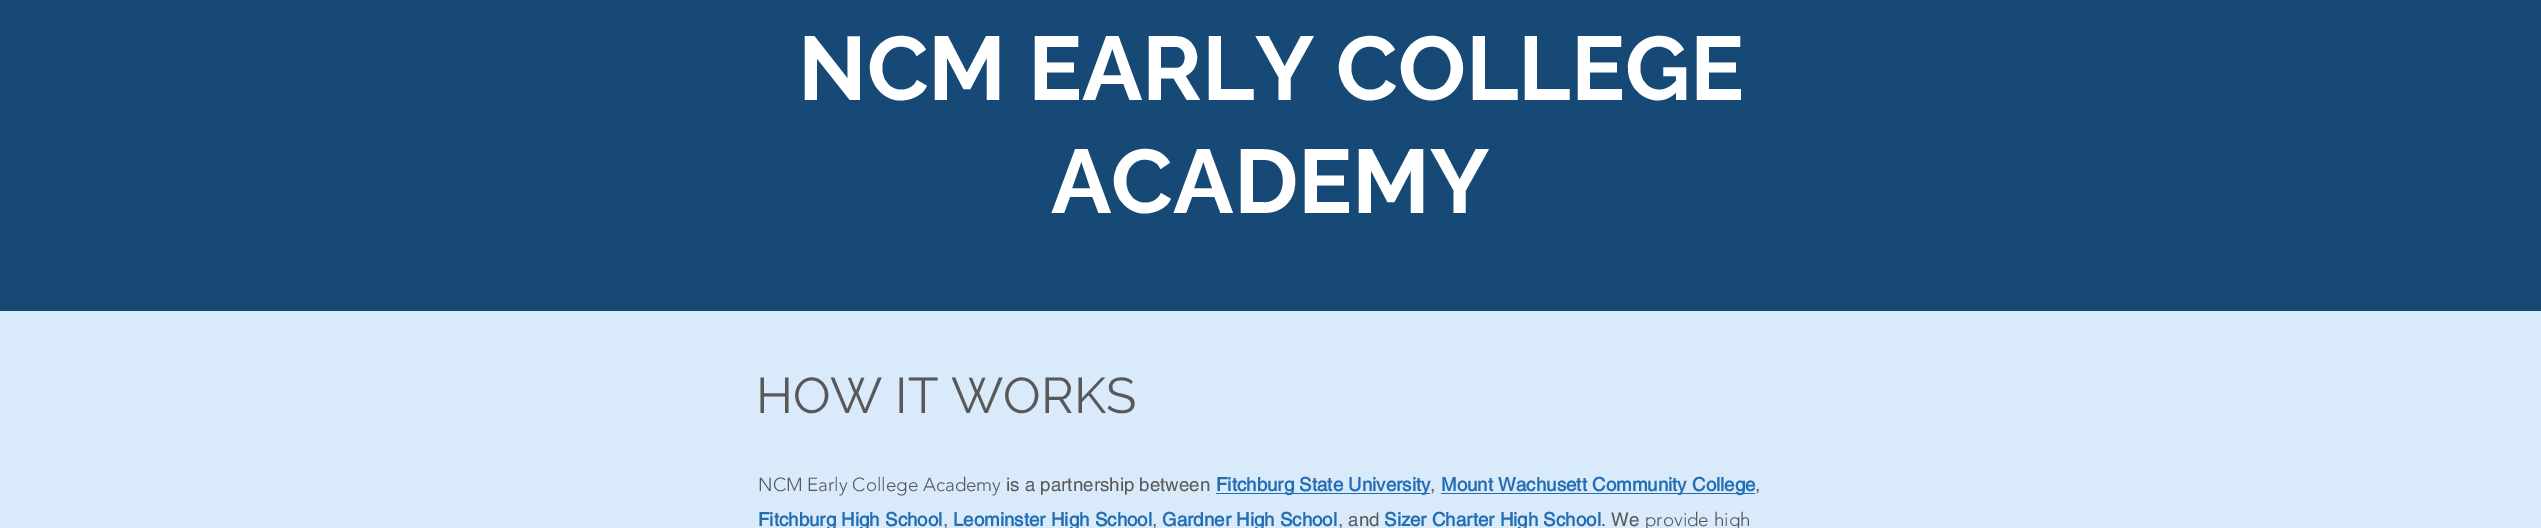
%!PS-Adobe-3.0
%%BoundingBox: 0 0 2541 528
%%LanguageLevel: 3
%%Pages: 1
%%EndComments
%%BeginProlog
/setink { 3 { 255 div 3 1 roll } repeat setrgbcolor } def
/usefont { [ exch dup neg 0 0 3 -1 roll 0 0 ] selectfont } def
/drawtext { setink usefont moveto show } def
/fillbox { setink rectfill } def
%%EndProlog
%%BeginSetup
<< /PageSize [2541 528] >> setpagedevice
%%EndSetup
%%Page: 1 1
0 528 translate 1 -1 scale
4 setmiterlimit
0 0 2541 528 23 73 119 fillbox
(NCM EARLY COLLEGE) 798 100 /Raleway-Bold 90 255 255 255 drawtext
(ACADEMY) 1051 213 /Raleway-Bold 90 255 255 255 drawtext
0 311 2541 217 217 234 250 fillbox
(HOW IT WORKS) 756 413 /Raleway-Regular 50 88 88 88 drawtext
(NCM Early College Academy) 758 491 /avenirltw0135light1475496-Light 18.75 88 88 88 drawtext
(is a partnership between) 1006 491 /helvetica-Regular 18.75 88 88 88 drawtext
1216 493 214 1 35 109 179 fillbox
(Fitchburg State University) 1216 491 /helvetica-Bold 18.75 35 109 179 drawtext
(,) 1430 491 /helvetica-Regular 18.75 88 88 88 drawtext
1441 493 314 1 35 109 179 fillbox
(Mount Wachusett Community College) 1441 491 /helvetica-Bold 18.75 35 109 179 drawtext
(,) 1755 491 /helvetica-Regular 18.75 88 88 88 drawtext
(Fitchburg High School) 758 526 /helvetica-Bold 18.75 35 109 179 drawtext
(,) 943 526 /helvetica-Regular 18.75 88 88 88 drawtext
(Leominster High School) 953 526 /helvetica-Bold 18.75 35 109 179 drawtext
(,) 1152 526 /helvetica-Regular 18.75 88 88 88 drawtext
(Gardner High School) 1162 526 /helvetica-Bold 18.75 35 109 179 drawtext
(, and) 1338 526 /helvetica-Regular 18.75 88 88 88 drawtext
(Sizer Charter High School) 1384 526 /helvetica-Bold 18.75 35 109 179 drawtext
(. We) 1601 526 /helvetica-Regular 18.75 88 88 88 drawtext
(provide high) 1645 526 /avenirltw0135light1475496-Light 18.75 88 88 88 drawtext
showpage
%%EOF
